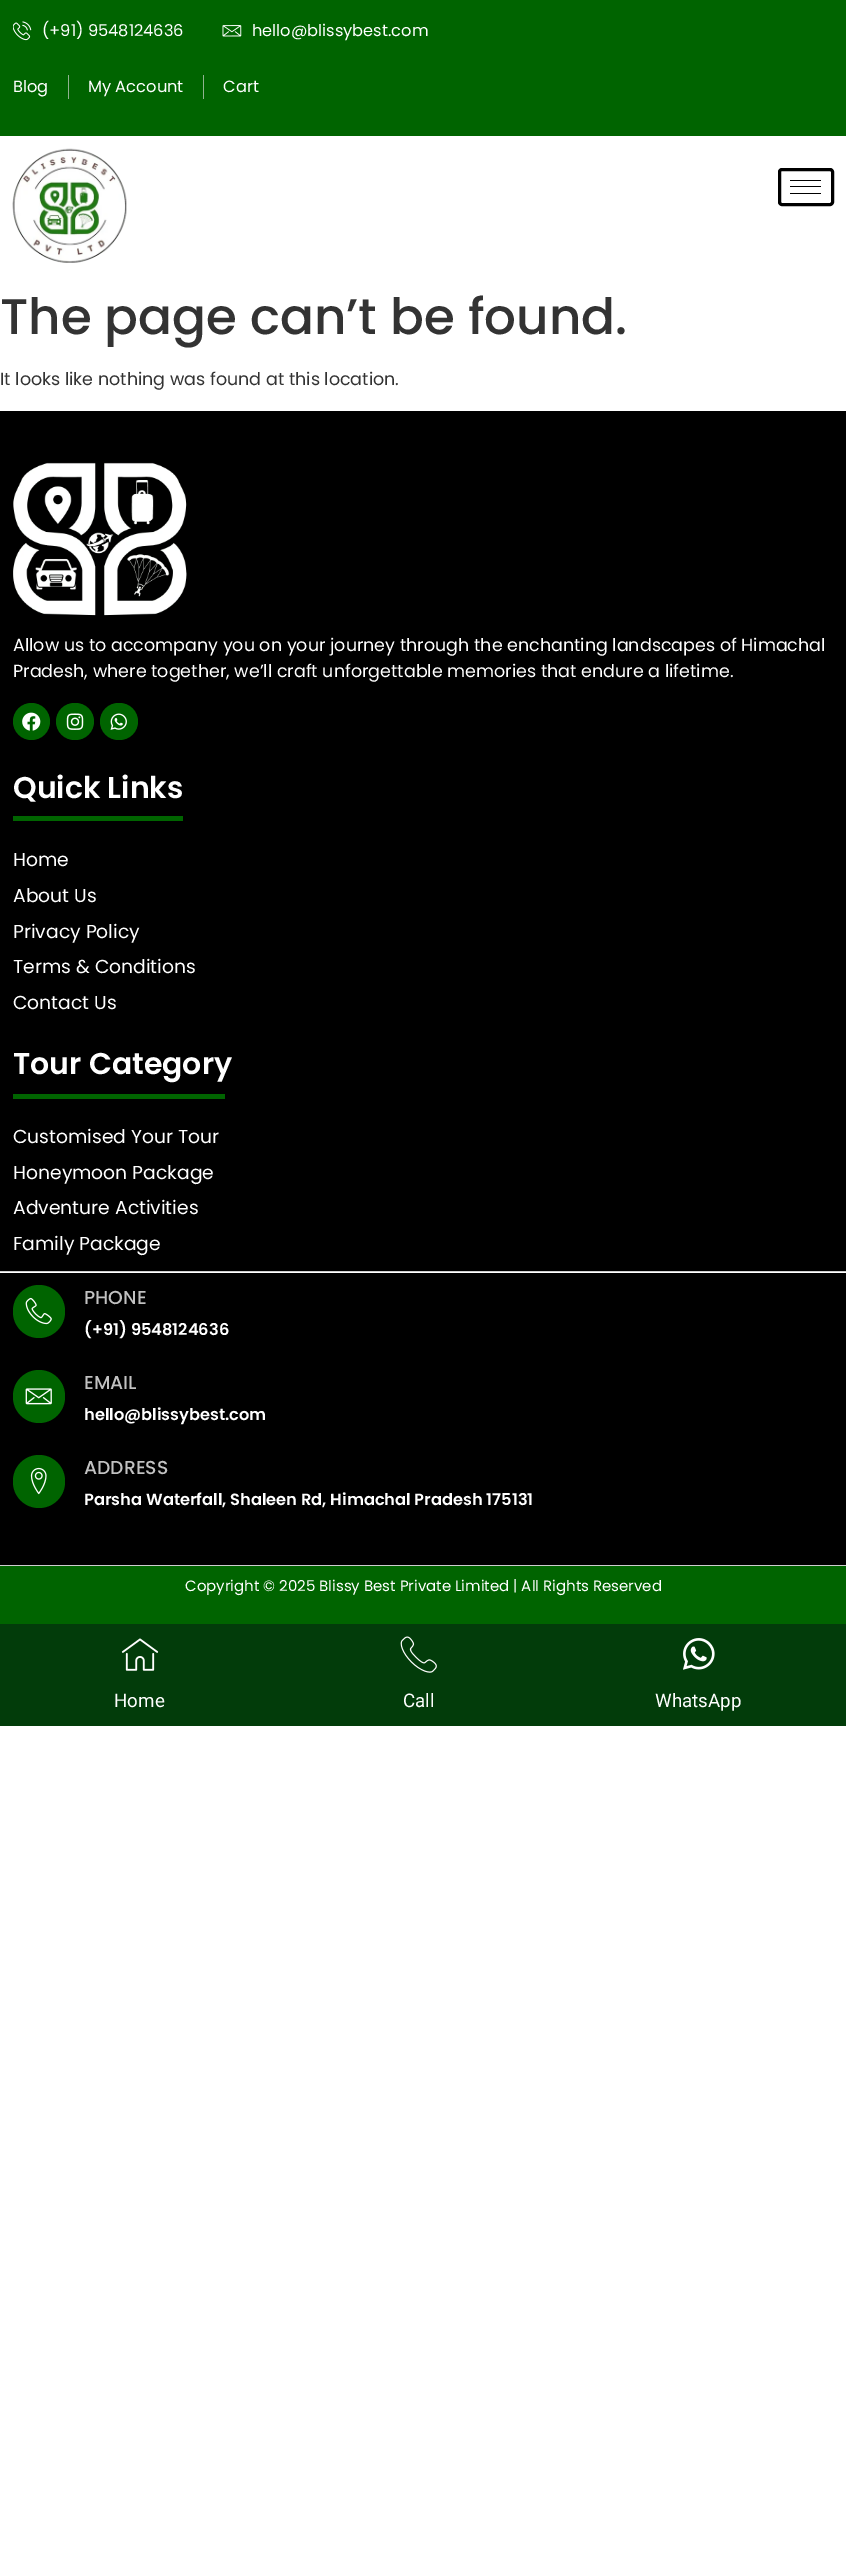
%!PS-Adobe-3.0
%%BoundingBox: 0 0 846 2565
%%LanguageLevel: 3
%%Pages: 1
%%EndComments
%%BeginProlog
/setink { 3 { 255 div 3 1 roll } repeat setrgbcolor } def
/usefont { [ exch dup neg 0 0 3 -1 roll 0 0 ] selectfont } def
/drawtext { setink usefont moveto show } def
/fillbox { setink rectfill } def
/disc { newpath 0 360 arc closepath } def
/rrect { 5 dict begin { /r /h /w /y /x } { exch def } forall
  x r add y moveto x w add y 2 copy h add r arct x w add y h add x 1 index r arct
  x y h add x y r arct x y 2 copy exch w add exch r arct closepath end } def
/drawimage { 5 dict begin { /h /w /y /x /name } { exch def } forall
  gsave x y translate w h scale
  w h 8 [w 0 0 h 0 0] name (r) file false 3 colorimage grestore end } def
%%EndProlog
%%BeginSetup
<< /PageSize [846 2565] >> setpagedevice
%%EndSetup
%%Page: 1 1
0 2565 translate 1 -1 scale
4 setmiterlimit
0 0 846 2565 255 255 255 fillbox
0 0 846 136 0 100 0 fillbox
(assets/img1.rgb) 13 21 19 20 drawimage
(\(+91\) 9548124636) 42 36 /Poppins-Regular 16.25 255 255 255 drawtext
(assets/img2.rgb) 222 25 20 12 drawimage
(hello@blissybest.com) 252 36 /Poppins-Regular 16.25 255 255 255 drawtext
(Blog) 13 92 /Poppins-Regular 16.25 255 255 255 drawtext
68 75 1 24 144 179 144 fillbox
(My Account) 88 92 /Poppins-Regular 16.25 255 255 255 drawtext
203 75 1 24 144 179 144 fillbox
(Cart) 223 92 /Poppins-Regular 16.25 255 255 255 drawtext
(assets/img3.rgb) 12 148 115 115 drawimage
0 0 0 setink
3 setlinewidth
779.5 169.5 53 35 2.5 rrect stroke
790 180 31 1 0 0 0 fillbox
790 186 31 1 0 0 0 fillbox
790 193 31 1 0 0 0 fillbox
(The page can’t be found.) 0 334 /Poppins-Medium 50 51 51 51 drawtext
(It looks like nothing was found at this location.) 0 385 /Poppins-Regular 17.5 51 51 51 drawtext
0 411 846 860 0 0 0 fillbox
(assets/img4.rgb) 13 462 174 154 drawimage
(Allow us to accompany you on your journey through the enchanting landscapes of Himachal) 13 651 /Poppins-Regular 17.5 255 255 255 drawtext
(Pradesh, where together, we’ll craft unforgettable memories that endure a lifetime.) 13 677 /Poppins-Regular 17.5 255 255 255 drawtext
0 100 0 setink
31.5 721.5 18.5 disc fill
(assets/img5.rgb) 22 712 19 19 drawimage
56 703 38 37 18.5 rrect fill
(assets/img6.rgb) 66 713 18 17 drawimage
100 703 38 37 18.5 rrect fill
(assets/img7.rgb) 110 713 17 17 drawimage
(Quick Links) 13 798 /Poppins-SemiBold 30 255 255 255 drawtext
13 816 170 5 0 100 0 fillbox
(Home) 13 866 /Poppins-Regular 18.75 255 255 255 drawtext
(About Us) 13 902 /Poppins-Regular 18.75 255 255 255 drawtext
(Privacy Policy) 13 938 /Poppins-Regular 18.75 255 255 255 drawtext
(Terms & Conditions) 13 973 /Poppins-Regular 18.75 255 255 255 drawtext
(Contact Us) 13 1009 /Poppins-Regular 18.75 255 255 255 drawtext
(Tour Category) 13 1074 /Poppins-SemiBold 30 255 255 255 drawtext
13 1094 212 5 0 100 0 fillbox
(Customised Your Tour) 13 1143 /Poppins-Regular 18.75 255 255 255 drawtext
(Honeymoon Package) 13 1179 /Poppins-Regular 18.75 255 255 255 drawtext
(Adventure Activities) 13 1214 /Poppins-Regular 18.75 255 255 255 drawtext
(Family Package) 13 1250 /Poppins-Regular 18.75 255 255 255 drawtext
0 1273 846 292 0 0 0 fillbox
0 1271 846 1 205 205 205 fillbox
0 1565 846 1 205 205 205 fillbox
0 100 0 setink
13 1285 52 53 26 rrect fill
(assets/img8.rgb) 25 1297 27 28 drawimage
(PHONE) 84 1304 /Poppins-Medium 18.75 193 193 193 drawtext
(\(+91\) 9548124636) 84 1335 /Poppins-SemiBold 16.25 255 255 255 drawtext
0 100 0 setink
13 1370 52 53 26 rrect fill
(assets/img9.rgb) 25 1388 27 17 drawimage
(EMAIL) 84 1389 /Poppins-Medium 18.75 193 193 193 drawtext
(hello@blissybest.com) 84 1420 /Poppins-SemiBold 16.25 255 255 255 drawtext
0 100 0 setink
13 1455 52 53 26 rrect fill
(assets/img10.rgb) 30 1467 17 28 drawimage
(ADDRESS) 84 1474 /Poppins-Medium 18.75 193 193 193 drawtext
(Parsha Waterfall, Shaleen Rd, Himachal Pradesh 175131) 84 1505 /Poppins-SemiBold 16.25 255 255 255 drawtext
0 1566 846 58 0 100 0 fillbox
(Copyright © 2025 Blissy Best Private Limited | All Rights Reserved) 185 1591 /Poppins-Regular 15 255 255 255 drawtext
0 1624 846 102 2 60 10 fillbox
(assets/img11.rgb) 121 1638 38 33 drawimage
(Home) 114 1707 /Roboto-Regular 18.75 255 255 255 drawtext
(assets/img12.rgb) 400 1636 37 37 drawimage
(Call) 403 1707 /Roboto-Regular 18.75 255 255 255 drawtext
(assets/img13.rgb) 683 1638 32 32 drawimage
(WhatsApp) 655 1707 /Roboto-Regular 18.75 255 255 255 drawtext
showpage
%%EOF
